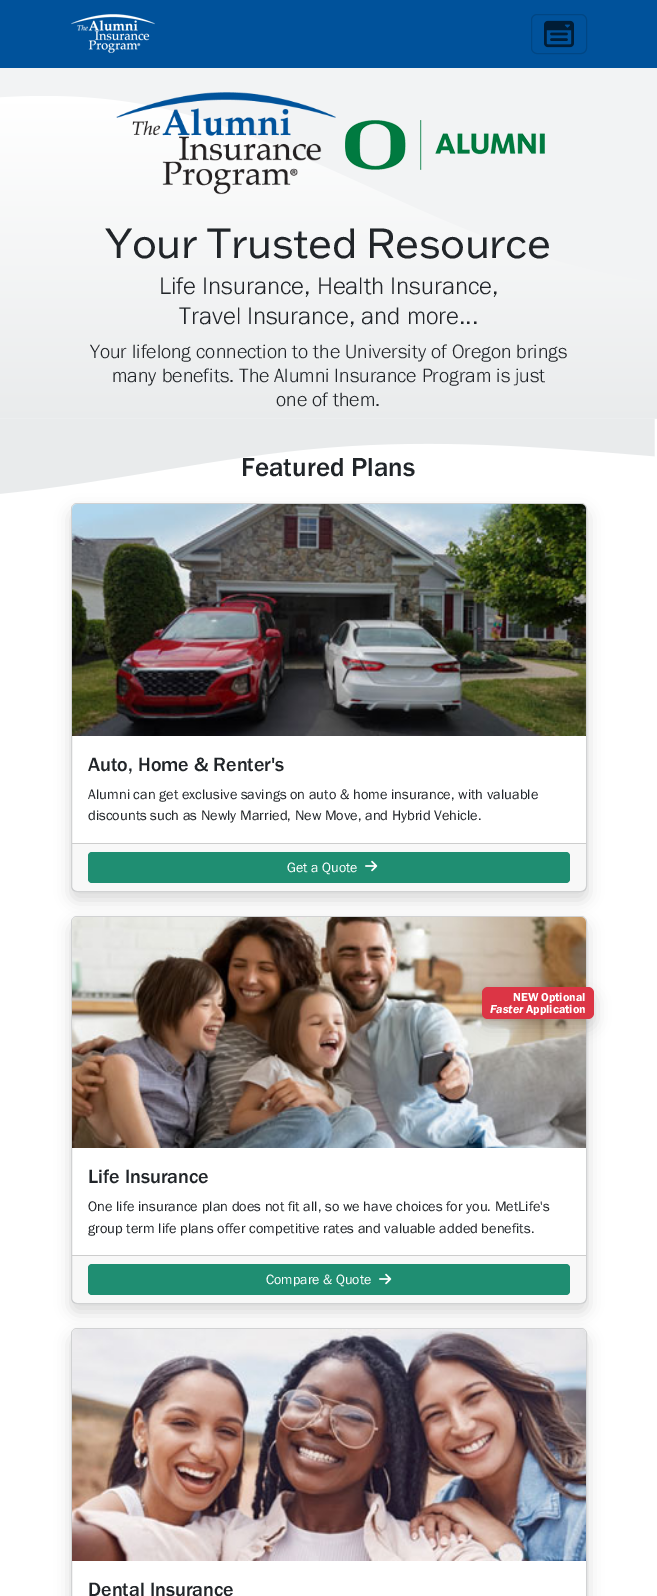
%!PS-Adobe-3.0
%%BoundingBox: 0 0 657 1596
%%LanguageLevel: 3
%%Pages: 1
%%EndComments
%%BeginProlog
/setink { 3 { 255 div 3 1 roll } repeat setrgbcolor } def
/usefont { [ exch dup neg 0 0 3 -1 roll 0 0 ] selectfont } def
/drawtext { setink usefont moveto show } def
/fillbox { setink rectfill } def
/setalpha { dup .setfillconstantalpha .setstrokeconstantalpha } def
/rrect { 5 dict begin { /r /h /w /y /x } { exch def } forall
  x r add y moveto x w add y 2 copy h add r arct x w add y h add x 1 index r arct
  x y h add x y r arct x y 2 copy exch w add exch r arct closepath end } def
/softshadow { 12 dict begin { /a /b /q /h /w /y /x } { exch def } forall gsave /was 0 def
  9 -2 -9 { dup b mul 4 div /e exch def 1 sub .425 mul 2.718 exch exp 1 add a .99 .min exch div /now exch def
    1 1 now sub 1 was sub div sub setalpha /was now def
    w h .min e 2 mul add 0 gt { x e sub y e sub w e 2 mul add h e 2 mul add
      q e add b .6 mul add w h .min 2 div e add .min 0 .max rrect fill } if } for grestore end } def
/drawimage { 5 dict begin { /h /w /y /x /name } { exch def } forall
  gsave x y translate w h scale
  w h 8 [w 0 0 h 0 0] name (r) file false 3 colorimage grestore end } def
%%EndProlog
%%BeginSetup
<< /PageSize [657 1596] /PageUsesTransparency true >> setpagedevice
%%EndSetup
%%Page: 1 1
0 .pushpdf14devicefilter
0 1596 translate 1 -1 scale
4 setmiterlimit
0 0 657 1596 255 255 255 fillbox
0 0 657 68 0 82 155 fillbox
(assets/img1.rgb) 71 14 84 39 drawimage
0 70 132 setink
531.5 14.5 55 39 5.5 rrect stroke
(assets/img2.rgb) 544 20 30 28 drawimage
0 68 657 351 242 243 244 fillbox
(assets/img3.rgb) 0 96 657 323 drawimage
(assets/img4.rgb) 116 92 220 103 drawimage
(assets/img5.rgb) 345 120 200 50 drawimage
/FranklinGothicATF-Regular 41.25 usefont
33 37 41 setink
105 258 moveto -0.5 0 (Your Trusted Resource) ashow
(Life Insurance, Health Insurance,) 159 294 /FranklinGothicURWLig-Regular 24.75 33 37 41 drawtext
(Travel Insurance, and more...) 179 324 /FranklinGothicURWLig-Regular 24.75 33 37 41 drawtext
(Your lifelong connection to the University of Oregon brings) 90 358 /FranklinGothicURWLig-Regular 20 33 37 41 drawtext
(many benefits. The Alumni Insurance Program is just) 112 382 /FranklinGothicURWLig-Regular 20 33 37 41 drawtext
(one of them.) 276 406 /FranklinGothicURWLig-Regular 20 33 37 41 drawtext
(assets/img6.rgb) 0 419 655 75 drawimage
(Featured Plans) 241 476 /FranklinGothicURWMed-Regular 27 33 37 41 drawtext
0 0 0 setink
71 511 516 389 6 8 0.15 softshadow
255 255 255 setink
71.5 503.5 515 388 5.5 rrect gsave fill grestore
209 210 211 setink
stroke
(assets/img7.rgb) 72 504 514 232 drawimage
(Auto, Home & Renter's) 88 771 /FranklinGothicURWMed-Regular 20 33 37 41 drawtext
(Alumni can get exclusive savings on auto & home insurance, with valuable) 88 799 /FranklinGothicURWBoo-Regular 14.4 33 37 41 drawtext
(discounts such as Newly Married, New Move, and Hybrid Vehicle.) 88 820 /FranklinGothicURWBoo-Regular 14.4 33 37 41 drawtext
0.03 setalpha
72 844 514 47 33 37 41 fillbox
1 setalpha
72 843 514 1 205 205 205 fillbox
31 142 114 setink
88 852 482 31 4 rrect fill
(Get a Quote) 287 872 /FranklinGothicURWBoo-Regular 14 255 255 255 drawtext
(assets/img8.rgb) 365 860 13 12 drawimage
0 0 0 setink
71 924 516 388 6 8 0.15 softshadow
255 255 255 setink
71.5 916.5 515 387 5.5 rrect gsave fill grestore
209 210 211 setink
stroke
(assets/img9.rgb) 72 917 514 231 drawimage
0 0 0 setink
482 995 112 32 6 8 0.15 softshadow
220 53 69 setink
482 987 112 32 6 rrect fill
(NEW Optional) 513 1001 /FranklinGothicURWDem-Regular 12 255 255 255 drawtext
(Faster) 490 1013 /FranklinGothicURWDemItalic-Italic 12 255 255 255 drawtext
(Application) 526 1013 /FranklinGothicURWDem-Regular 12 255 255 255 drawtext
(Life Insurance) 88 1183 /FranklinGothicURWMed-Regular 20 33 37 41 drawtext
(One life insurance plan does not fit all, so we have choices for you. MetLife's) 88 1211 /FranklinGothicURWBoo-Regular 14.4 33 37 41 drawtext
(group term life plans offer competitive rates and valuable added benefits.) 88 1233 /FranklinGothicURWBoo-Regular 14.4 33 37 41 drawtext
0.03 setalpha
72 1256 514 47 33 37 41 fillbox
1 setalpha
72 1255 514 1 205 205 205 fillbox
31 142 114 setink
88 1264 482 31 4 rrect fill
(Compare & Quote) 266 1284 /FranklinGothicURWBoo-Regular 14 255 255 255 drawtext
(assets/img8.rgb) 379 1273 13 12 drawimage
gsave
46 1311 moveto 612 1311 lineto 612 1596 lineto 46 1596 lineto closepath 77 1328 moveto 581 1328 lineto 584.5 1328 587 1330.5 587 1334 curveto 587 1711 lineto 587 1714.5 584.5 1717 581 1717 curveto 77 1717 lineto 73.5 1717 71 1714.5 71 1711 curveto 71 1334 lineto 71 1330.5 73.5 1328 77 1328 curveto closepath eoclip newpath
0 0 0 setink
71 1336 516 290 6 8 0.15 softshadow
grestore
209 210 211 setink
71.5 1328.5 515 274 5.5 rrect stroke
(assets/img10.rgb) 72 1329 514 232 drawimage
(Dental Insurance) 88 1596 /FranklinGothicURWMed-Regular 20 33 37 41 drawtext
.poppdf14devicefilter showpage
%%EOF
